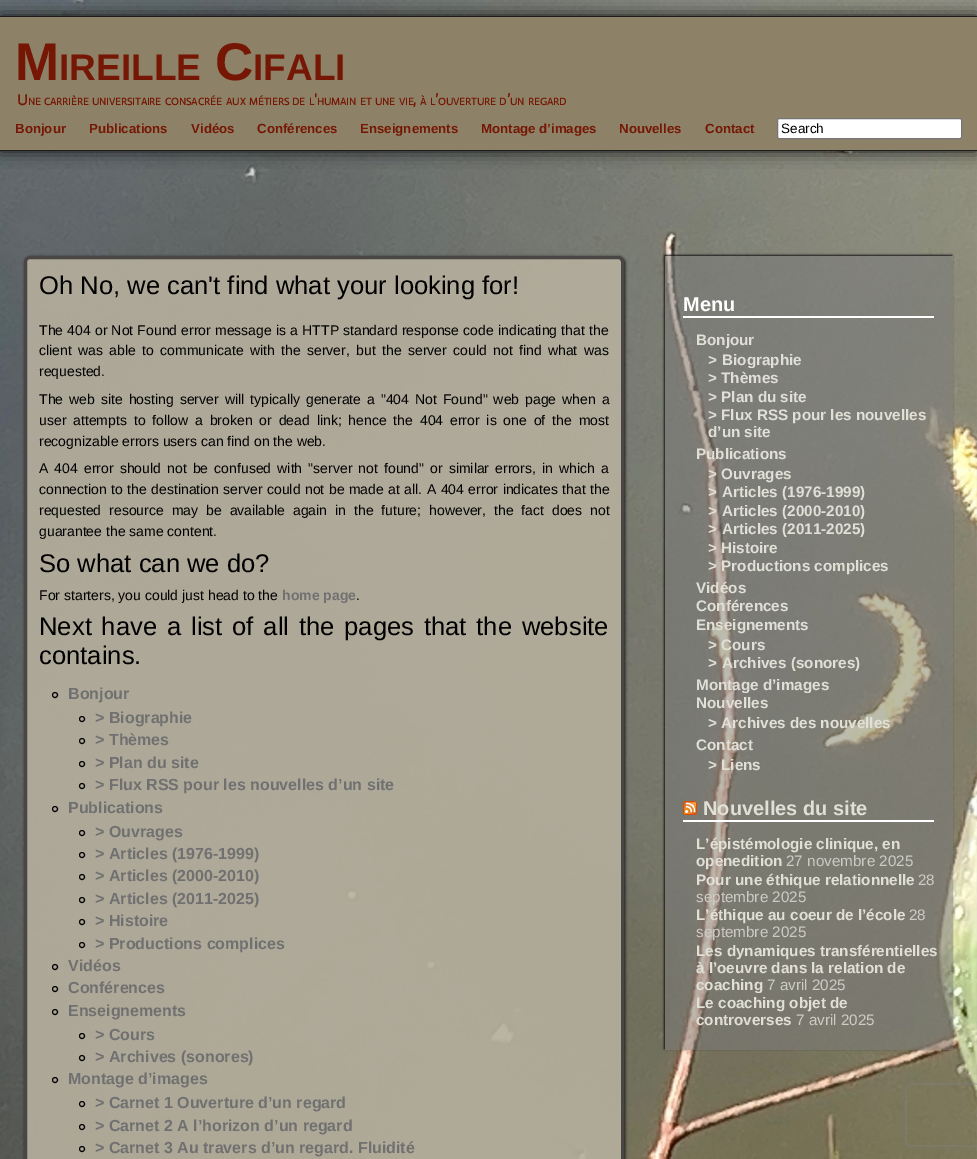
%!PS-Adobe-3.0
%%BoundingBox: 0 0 977 1159
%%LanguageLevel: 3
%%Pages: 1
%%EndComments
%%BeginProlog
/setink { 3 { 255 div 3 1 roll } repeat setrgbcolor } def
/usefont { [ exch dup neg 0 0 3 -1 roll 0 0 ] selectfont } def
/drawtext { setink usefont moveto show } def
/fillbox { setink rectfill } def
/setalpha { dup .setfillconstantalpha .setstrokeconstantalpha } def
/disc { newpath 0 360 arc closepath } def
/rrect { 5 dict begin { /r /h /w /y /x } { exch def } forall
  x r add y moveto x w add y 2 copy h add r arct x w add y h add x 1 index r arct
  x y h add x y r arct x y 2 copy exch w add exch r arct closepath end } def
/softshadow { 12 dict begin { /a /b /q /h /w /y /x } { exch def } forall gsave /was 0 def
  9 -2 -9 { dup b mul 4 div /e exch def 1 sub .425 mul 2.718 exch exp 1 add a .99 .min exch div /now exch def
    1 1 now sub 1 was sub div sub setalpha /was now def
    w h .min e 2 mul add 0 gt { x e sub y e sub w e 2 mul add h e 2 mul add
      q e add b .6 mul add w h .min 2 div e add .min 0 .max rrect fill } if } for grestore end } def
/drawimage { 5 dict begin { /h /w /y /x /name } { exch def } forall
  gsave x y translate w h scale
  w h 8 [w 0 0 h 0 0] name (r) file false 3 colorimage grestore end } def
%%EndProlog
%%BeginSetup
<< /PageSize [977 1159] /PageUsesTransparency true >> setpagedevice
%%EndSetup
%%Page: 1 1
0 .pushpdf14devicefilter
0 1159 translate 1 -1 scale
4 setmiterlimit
0 0 977 1159 255 255 255 fillbox
(assets/img1.rgb) 0 0 977 1159 drawimage
17 17 17 setink
0 16 977 135 0 8 1 softshadow
0 17 977 133 141 130 103 fillbox
0 16 977 1 28 28 28 fillbox
0 150 977 1 28 28 28 fillbox
(M) 15 80 /LiberationSans-Bold 53 117 23 4 drawtext
(IREILLE) 59 80 /LiberationSans-Bold 37 117 23 4 drawtext
(C) 215 80 /LiberationSans-Bold 53 117 23 4 drawtext
(IFALI) 253 80 /LiberationSans-Bold 37 117 23 4 drawtext
(U) 17 105 /Actor-Bold 15 117 23 4 drawtext
(NE) 28 105 /Actor-Bold 10.25 117 23 4 drawtext
(CARRIÈRE) 44 105 /Actor-Bold 10.25 117 23 4 drawtext
(UNIVERSITAIRE) 92 105 /Actor-Bold 10.25 117 23 4 drawtext
(CONSACRÉE) 165 105 /Actor-Bold 10.25 117 23 4 drawtext
(AUX) 226 105 /Actor-Bold 10.25 117 23 4 drawtext
(MÉTIERS) 249 105 /Actor-Bold 10.25 117 23 4 drawtext
(DE) 292 105 /Actor-Bold 10.25 117 23 4 drawtext
(L) 309 105 /Actor-Bold 10.25 117 23 4 drawtext
(') 314 105 /Actor-Bold 15 117 23 4 drawtext
(HUMAIN) 317 105 /Actor-Bold 10.25 117 23 4 drawtext
(ET) 360 105 /Actor-Bold 10.25 117 23 4 drawtext
(UNE) 375 105 /Actor-Bold 10.25 117 23 4 drawtext
(VIE) 399 105 /Actor-Bold 10.25 117 23 4 drawtext
(,) 413 105 /Actor-Bold 15 117 23 4 drawtext
(À) 420 105 /Actor-Bold 10.25 117 23 4 drawtext
(L) 430 105 /Actor-Bold 10.25 117 23 4 drawtext
(’) 435 105 /Actor-Bold 15 117 23 4 drawtext
(OUVERTURE) 438 105 /Actor-Bold 10.25 117 23 4 drawtext
(D) 499 105 /Actor-Bold 10.25 117 23 4 drawtext
(’) 507 105 /Actor-Bold 15 117 23 4 drawtext
(UN) 510 105 /Actor-Bold 10.25 117 23 4 drawtext
(REGARD) 528 105 /Actor-Bold 10.25 117 23 4 drawtext
(Bonjour) 15 133 /LiberationSans-Bold 13.25 117 23 4 drawtext
(Publications) 89 133 /LiberationSans-Bold 13.25 117 23 4 drawtext
(Vidéos) 191 133 /LiberationSans-Bold 13.25 117 23 4 drawtext
(Conférences) 257 133 /LiberationSans-Bold 13.25 117 23 4 drawtext
(Enseignements) 360 133 /LiberationSans-Bold 13.25 117 23 4 drawtext
(Montage d’images) 481 133 /LiberationSans-Bold 13.25 117 23 4 drawtext
(Nouvelles) 619 133 /LiberationSans-Bold 13.25 117 23 4 drawtext
(Contact) 705 133 /LiberationSans-Bold 13.25 117 23 4 drawtext
255 255 255 setink
777.5 118.5 184 20 1.5 rrect gsave fill grestore
118 118 118 setink
stroke
(Search) 781 133 /LiberationSans-Regular 13.5 0 0 0 drawtext
gsave
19 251 moveto 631 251 lineto 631 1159 lineto 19 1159 lineto closepath 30 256 moveto 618 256 lineto 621.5 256 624 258.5 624 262 curveto 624 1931 lineto 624 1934.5 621.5 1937 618 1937 curveto 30 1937 lineto 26.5 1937 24 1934.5 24 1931 curveto 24 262 lineto 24 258.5 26.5 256 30 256 curveto closepath eoclip newpath
17 17 17 setink
25 257 600 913 6 1.5 1 softshadow
grestore
0.9 setalpha
181 175 157 setink
25.5 257.5 597 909 4.5 rrect fill
1 setalpha
74 70 70 setink
3 setlinewidth
25.5 257.5 597 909 4.5 rrect stroke
(Oh No, we can't find what your looking for!) 39 294 /LiberationSans-Regular 25.6 0 0 0 drawtext
/LiberationSans-Regular 14 usefont
39 335 moveto 0.3 0 32 (The 404 or Not Found error message is a HTTP standard response code indicating that the) widthshow
39 355 moveto 2.5 0 32 (client was able to communicate with the server, but the server could not find what was) widthshow
(requested.) 39 376 /LiberationSans-Regular 14 0 0 0 drawtext
39 404 moveto 2.1 0 32 (The web site hosting server will typically generate a "404 Not Found" web page when a) widthshow
39 425 moveto 3 0 32 (user attempts to follow a broken or dead link; hence the 404 error is one of the most) widthshow
(recognizable errors users can find on the web.) 39 446 /LiberationSans-Regular 14 0 0 0 drawtext
39 473 moveto 2.25 0 32 (A 404 error should not be confused with "server not found" or similar errors, in which a) widthshow
39 494 moveto 0.6 0 32 (connection to the destination server could not be made at all. A 404 error indicates that the) widthshow
39 515 moveto 4.1 0 32 (requested resource may be available again in the future; however, the fact does not) widthshow
(guarantee the same content.) 39 536 /LiberationSans-Regular 14 0 0 0 drawtext
(So what can we do?) 39 572 /LiberationSans-Regular 25.6 0 0 0 drawtext
(For starters, you could just head to the) 39 600 /LiberationSans-Regular 14 0 0 0 drawtext
(home page) 282 600 /LiberationSans-Bold 14 112 112 112 drawtext
(.) 356 600 /LiberationSans-Regular 14 0 0 0 drawtext
/LiberationSans-Regular 25.6 usefont
39 635 moveto 2.75 0 32 (Next have a list of all the pages that the website) widthshow
(contains.) 39 664 /LiberationSans-Regular 25.6 0 0 0 drawtext
1 setlinewidth
55 695 2.5 disc stroke
(Bonjour) 68 699 /LiberationSans-Bold 16 112 112 112 drawtext
0 0 0 setink
82 719 2.5 disc stroke
(> Biographie) 95 723 /LiberationSans-Bold 16 112 112 112 drawtext
0 0 0 setink
82 741 2.5 disc stroke
(> Thèmes) 95 745 /LiberationSans-Bold 16 112 112 112 drawtext
0 0 0 setink
82 764 2.5 disc stroke
(> Plan du site) 95 768 /LiberationSans-Bold 16 112 112 112 drawtext
0 0 0 setink
82 786 2.5 disc stroke
(> Flux RSS pour les nouvelles d’un site) 95 790 /LiberationSans-Bold 16 112 112 112 drawtext
0 0 0 setink
55 809 2.5 disc stroke
(Publications) 68 813 /LiberationSans-Bold 16 112 112 112 drawtext
0 0 0 setink
82 833 2.5 disc stroke
(> Ouvrages) 95 837 /LiberationSans-Bold 16 112 112 112 drawtext
0 0 0 setink
82 855 2.5 disc stroke
(> Articles \(1976-1999\)) 95 859 /LiberationSans-Bold 16 112 112 112 drawtext
0 0 0 setink
82 877 2.5 disc stroke
(> Articles \(2000-2010\)) 95 881 /LiberationSans-Bold 16 112 112 112 drawtext
0 0 0 setink
82 900 2.5 disc stroke
(> Articles \(2011-2025\)) 95 904 /LiberationSans-Bold 16 112 112 112 drawtext
0 0 0 setink
82 922 2.5 disc stroke
(> Histoire) 95 926 /LiberationSans-Bold 16 112 112 112 drawtext
0 0 0 setink
82 945 2.5 disc stroke
(> Productions complices) 95 949 /LiberationSans-Bold 16 112 112 112 drawtext
0 0 0 setink
55 967 2.5 disc stroke
(Vidéos) 68 971 /LiberationSans-Bold 16 112 112 112 drawtext
0 0 0 setink
55 989 2.5 disc stroke
(Conférences) 68 993 /LiberationSans-Bold 16 112 112 112 drawtext
0 0 0 setink
55 1012 2.5 disc stroke
(Enseignements) 68 1016 /LiberationSans-Bold 16 112 112 112 drawtext
0 0 0 setink
82 1036 2.5 disc stroke
(> Cours) 95 1040 /LiberationSans-Bold 16 112 112 112 drawtext
0 0 0 setink
82 1058 2.5 disc stroke
(> Archives \(sonores\)) 95 1062 /LiberationSans-Bold 16 112 112 112 drawtext
0 0 0 setink
55 1080 2.5 disc stroke
(Montage d’images) 68 1084 /LiberationSans-Bold 16 112 112 112 drawtext
0 0 0 setink
82 1104 2.5 disc stroke
(> Carnet 1 Ouverture d’un regard) 95 1108 /LiberationSans-Bold 16 112 112 112 drawtext
0 0 0 setink
82 1127 2.5 disc stroke
(> Carnet 2 A l’horizon d’un regard) 95 1131 /LiberationSans-Bold 16 112 112 112 drawtext
0 0 0 setink
82 1149 2.5 disc stroke
(> Carnet 3 Au travers d’un regard. Fluidité) 95 1153 /LiberationSans-Bold 16 112 112 112 drawtext
gsave
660 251 moveto 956 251 lineto 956 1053 lineto 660 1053 lineto closepath 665 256 moveto 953 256 lineto 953 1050 lineto 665 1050 lineto closepath eoclip newpath
17 17 17 setink
664 255 288 794 0 1 1 softshadow
grestore
0.5 setalpha
665 256 288 794 122 122 122 fillbox
1 setalpha
683 316 251 2 255 255 255 fillbox
(Menu) 683 311 /LiberationSans-Bold 20 255 255 255 drawtext
(Bonjour) 696 345 /LiberationSans-Bold 15.25 225 224 215 drawtext
(>) 708 365 /LiberationSans-Bold 15.25 225 224 215 drawtext
gsave
708 351 239 17 rectclip
(Biographie) 722 365 /LiberationSans-Bold 15.25 225 224 215 drawtext
grestore
(> Thèmes) 708 383 /LiberationSans-Bold 15.25 225 224 215 drawtext
(> Plan du site) 708 402 /LiberationSans-Bold 15.25 225 224 215 drawtext
(> Flux RSS pour les nouvelles) 708 420 /LiberationSans-Bold 15.25 225 224 215 drawtext
(d’un site) 708 437 /LiberationSans-Bold 15.25 225 224 215 drawtext
(Publications) 696 459 /LiberationSans-Bold 15.25 225 224 215 drawtext
(> Ouvrages) 708 479 /LiberationSans-Bold 15.25 225 224 215 drawtext
(>) 708 497 /LiberationSans-Bold 15.25 225 224 215 drawtext
gsave
708 483 239 17 rectclip
(Articles \(1976-1999\)) 722 497 /LiberationSans-Bold 15.25 225 224 215 drawtext
grestore
(>) 708 516 /LiberationSans-Bold 15.25 225 224 215 drawtext
gsave
708 502 239 17 rectclip
(Articles \(2000-2010\)) 722 516 /LiberationSans-Bold 15.25 225 224 215 drawtext
grestore
(>) 708 534 /LiberationSans-Bold 15.25 225 224 215 drawtext
gsave
708 520 239 17 rectclip
(Articles \(2011-2025\)) 722 534 /LiberationSans-Bold 15.25 225 224 215 drawtext
grestore
(> Histoire) 708 553 /LiberationSans-Bold 15.25 225 224 215 drawtext
(> Productions complices) 708 571 /LiberationSans-Bold 15.25 225 224 215 drawtext
(Vidéos) 696 593 /LiberationSans-Bold 15.25 225 224 215 drawtext
(Conférences) 696 611 /LiberationSans-Bold 15.25 225 224 215 drawtext
(Enseignements) 696 630 /LiberationSans-Bold 15.25 225 224 215 drawtext
(> Cours) 708 650 /LiberationSans-Bold 15.25 225 224 215 drawtext
(>) 708 668 /LiberationSans-Bold 15.25 225 224 215 drawtext
gsave
708 654 239 17 rectclip
(Archives \(sonores\)) 722 668 /LiberationSans-Bold 15.25 225 224 215 drawtext
grestore
gsave
696 676 251 17 rectclip
(Montage d’images) 696 690 /LiberationSans-Bold 15.25 225 224 215 drawtext
grestore
(Nouvelles) 696 708 /LiberationSans-Bold 15.25 225 224 215 drawtext
(> Archives des nouvelles) 708 728 /LiberationSans-Bold 15.25 225 224 215 drawtext
(Contact) 696 750 /LiberationSans-Bold 15.25 225 224 215 drawtext
(> Liens) 708 770 /LiberationSans-Bold 15.25 225 224 215 drawtext
683 820 251 2 255 255 255 fillbox
(assets/img2.rgb) 683 801 14 14 drawimage
(Nouvelles du site) 703 815 /LiberationSans-Bold 20 225 224 215 drawtext
(L’épistémologie clinique, en) 696 849 /LiberationSans-Bold 15.25 225 224 215 drawtext
(openedition) 696 866 /LiberationSans-Bold 15.25 225 224 215 drawtext
(27 novembre 2025) 786 866 /LiberationSans-Regular 15.25 204 203 196 drawtext
(Pour une éthique relationnelle) 696 885 /LiberationSans-Bold 15.25 225 224 215 drawtext
(28) 918 885 /LiberationSans-Regular 15.25 204 203 196 drawtext
(septembre 2025) 696 902 /LiberationSans-Regular 15.25 204 203 196 drawtext
(L’éthique au coeur de l’école) 696 920 /LiberationSans-Bold 15.25 225 224 215 drawtext
(28) 909 920 /LiberationSans-Regular 15.25 204 203 196 drawtext
(septembre 2025) 696 937 /LiberationSans-Regular 15.25 204 203 196 drawtext
(Les dynamiques transférentielles) 696 956 /LiberationSans-Bold 15.25 225 224 215 drawtext
(à l’oeuvre dans la relation de) 696 973 /LiberationSans-Bold 15.25 225 224 215 drawtext
gsave
696 942 251 51 rectclip
(coaching) 696 990 /LiberationSans-Bold 15.25 225 224 215 drawtext
grestore
(7 avril 2025) 767 990 /LiberationSans-Regular 15.25 204 203 196 drawtext
(Le coaching objet de) 696 1008 /LiberationSans-Bold 15.25 225 224 215 drawtext
(controverses) 696 1025 /LiberationSans-Bold 15.25 225 224 215 drawtext
(7 avril 2025) 796 1025 /LiberationSans-Regular 15.25 204 203 196 drawtext
gsave
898 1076 moveto 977 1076 lineto 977 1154 lineto 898 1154 lineto closepath 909 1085 moveto 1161 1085 lineto 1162 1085 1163 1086 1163 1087 curveto 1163 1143 lineto 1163 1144 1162 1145 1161 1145 curveto 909 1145 lineto 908 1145 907 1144 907 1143 curveto 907 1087 lineto 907 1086 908 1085 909 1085 curveto closepath eoclip newpath
128 128 128 setink
907 1085 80 60 2 2.5 1 softshadow
grestore
.poppdf14devicefilter showpage
%%EOF
